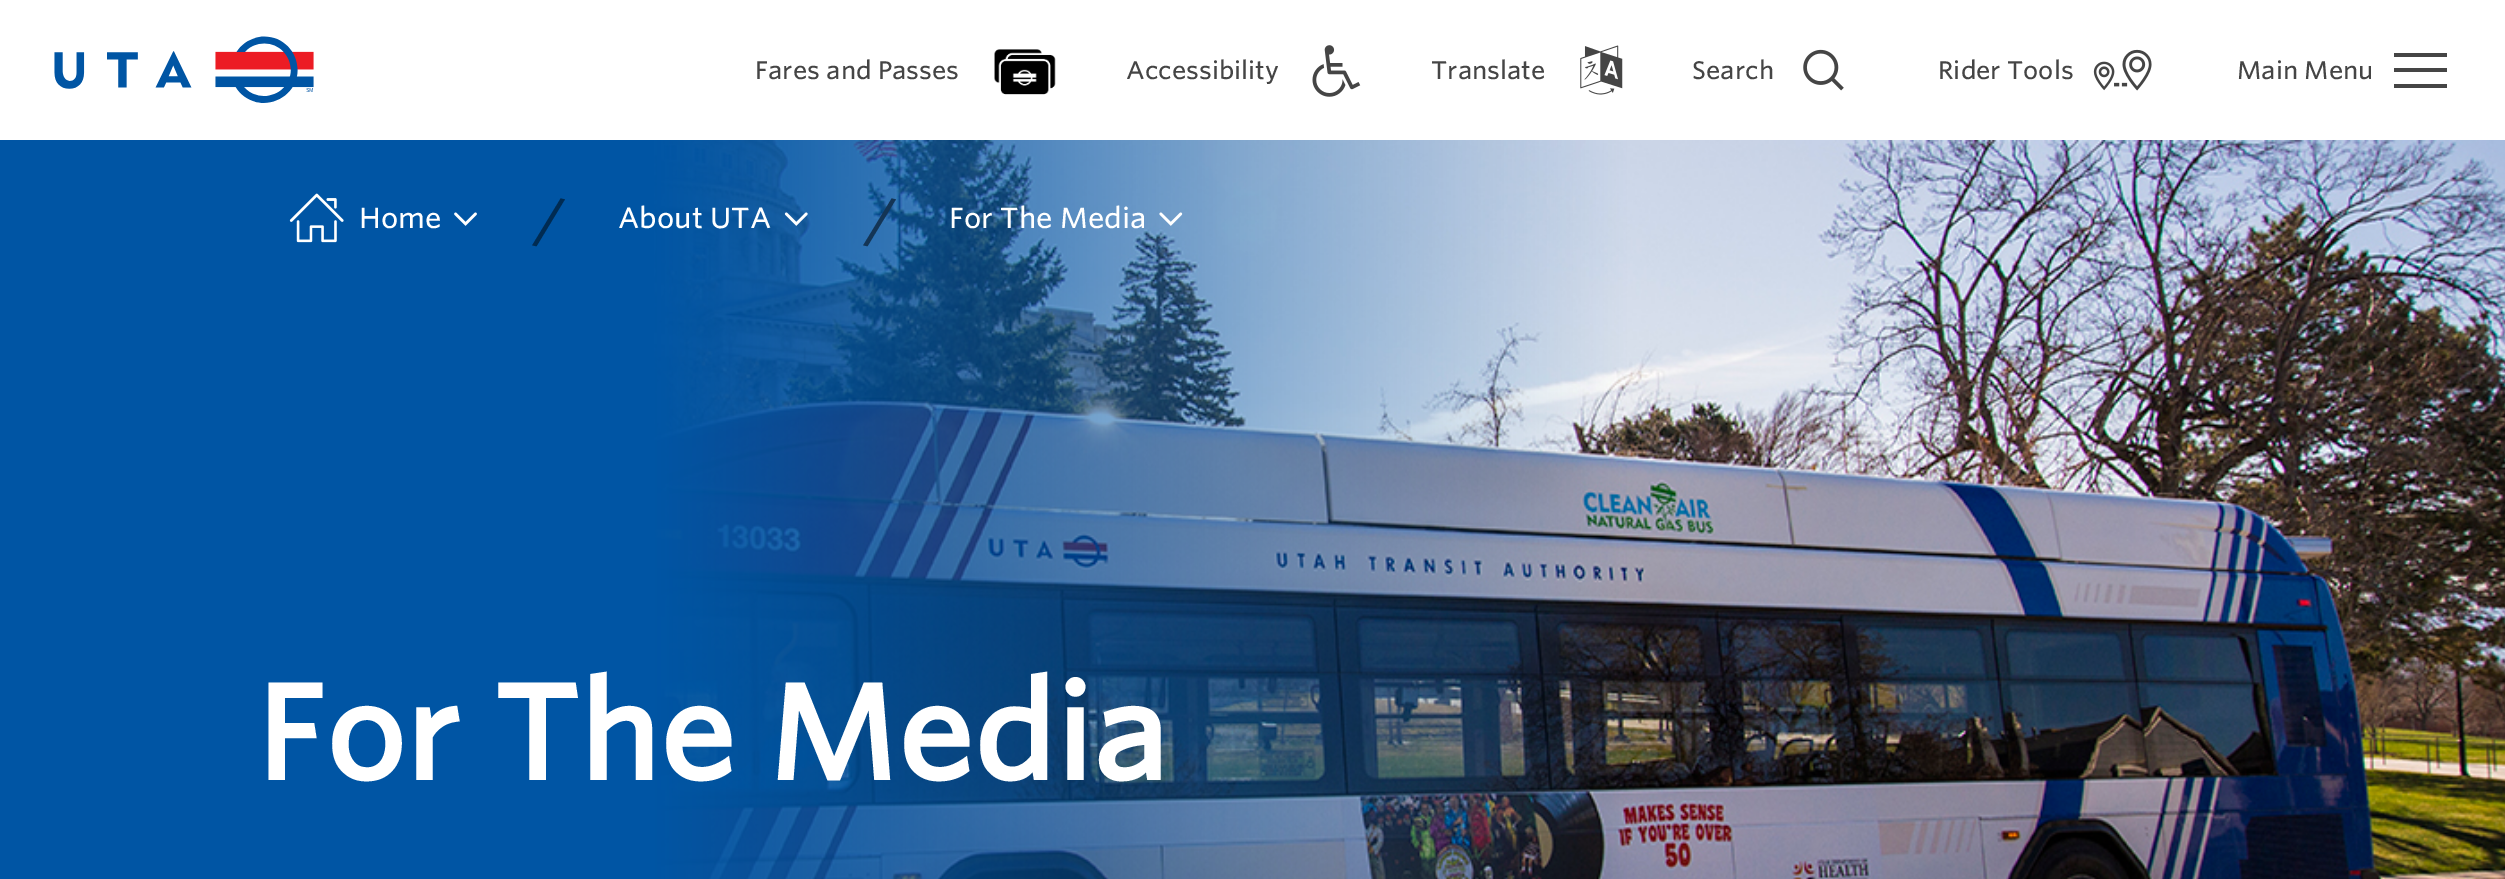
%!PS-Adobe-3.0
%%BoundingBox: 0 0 2505 879
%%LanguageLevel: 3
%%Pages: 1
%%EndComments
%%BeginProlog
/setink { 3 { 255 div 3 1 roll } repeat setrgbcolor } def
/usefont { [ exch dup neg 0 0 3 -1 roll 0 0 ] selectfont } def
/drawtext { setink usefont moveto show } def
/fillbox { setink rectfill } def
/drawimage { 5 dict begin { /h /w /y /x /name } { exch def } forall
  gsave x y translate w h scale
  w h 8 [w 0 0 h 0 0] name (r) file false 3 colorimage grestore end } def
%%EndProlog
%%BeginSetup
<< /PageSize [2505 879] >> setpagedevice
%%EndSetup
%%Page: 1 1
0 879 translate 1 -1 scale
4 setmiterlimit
0 0 2505 879 255 255 255 fillbox
(assets/img1.rgb) 54 36 260 67 drawimage
(Fares and Passes) 755 79 /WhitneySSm-Medium 24.5 69 69 69 drawtext
(assets/img2.rgb) 994 49 62 46 drawimage
(Accessibility) 1126 79 /WhitneySSm-Medium 24.5 69 69 69 drawtext
(assets/img3.rgb) 1312 45 49 52 drawimage
(Translate) 1431 79 /WhitneySSm-Medium 24.5 69 69 69 drawtext
(assets/img4.rgb) 1580 45 43 50 drawimage
(Search) 1692 79 /WhitneySSm-Medium 24.5 69 69 69 drawtext
(assets/img5.rgb) 1803 49 41 42 drawimage
(Rider Tools) 1938 79 /WhitneySSm-Medium 24.5 69 69 69 drawtext
(assets/img6.rgb) 2093 49 59 42 drawimage
(Main Menu) 2237 79 /WhitneySSm-Medium 24.5 69 69 69 drawtext
2394 53 53 4 69 69 69 fillbox
2394 68 53 4 69 69 69 fillbox
2394 84 53 4 69 69 69 fillbox
(assets/img7.rgb) 0 140 2505 739 drawimage
(assets/img8.rgb) 289 193 55 50 drawimage
(Home) 359 228 /WhitneySSm-Medium 28 255 255 255 drawtext
(assets/img9.rgb) 454 212 23 14 drawimage
(/) 534 239 /WhitneySSm-Medium 52 0 43 82 drawtext
(About UTA) 618 228 /WhitneySSm-Medium 28 255 255 255 drawtext
(assets/img10.rgb) 784 212 24 14 drawimage
(/) 865 239 /WhitneySSm-Medium 52 20 53 85 drawtext
(For The Media) 949 228 /WhitneySSm-Medium 28 255 255 255 drawtext
(assets/img11.rgb) 1159 212 24 14 drawimage
(For The Media) 256 780 /WhitneySSm-Bold 129.5 255 255 255 drawtext
showpage
%%EOF
